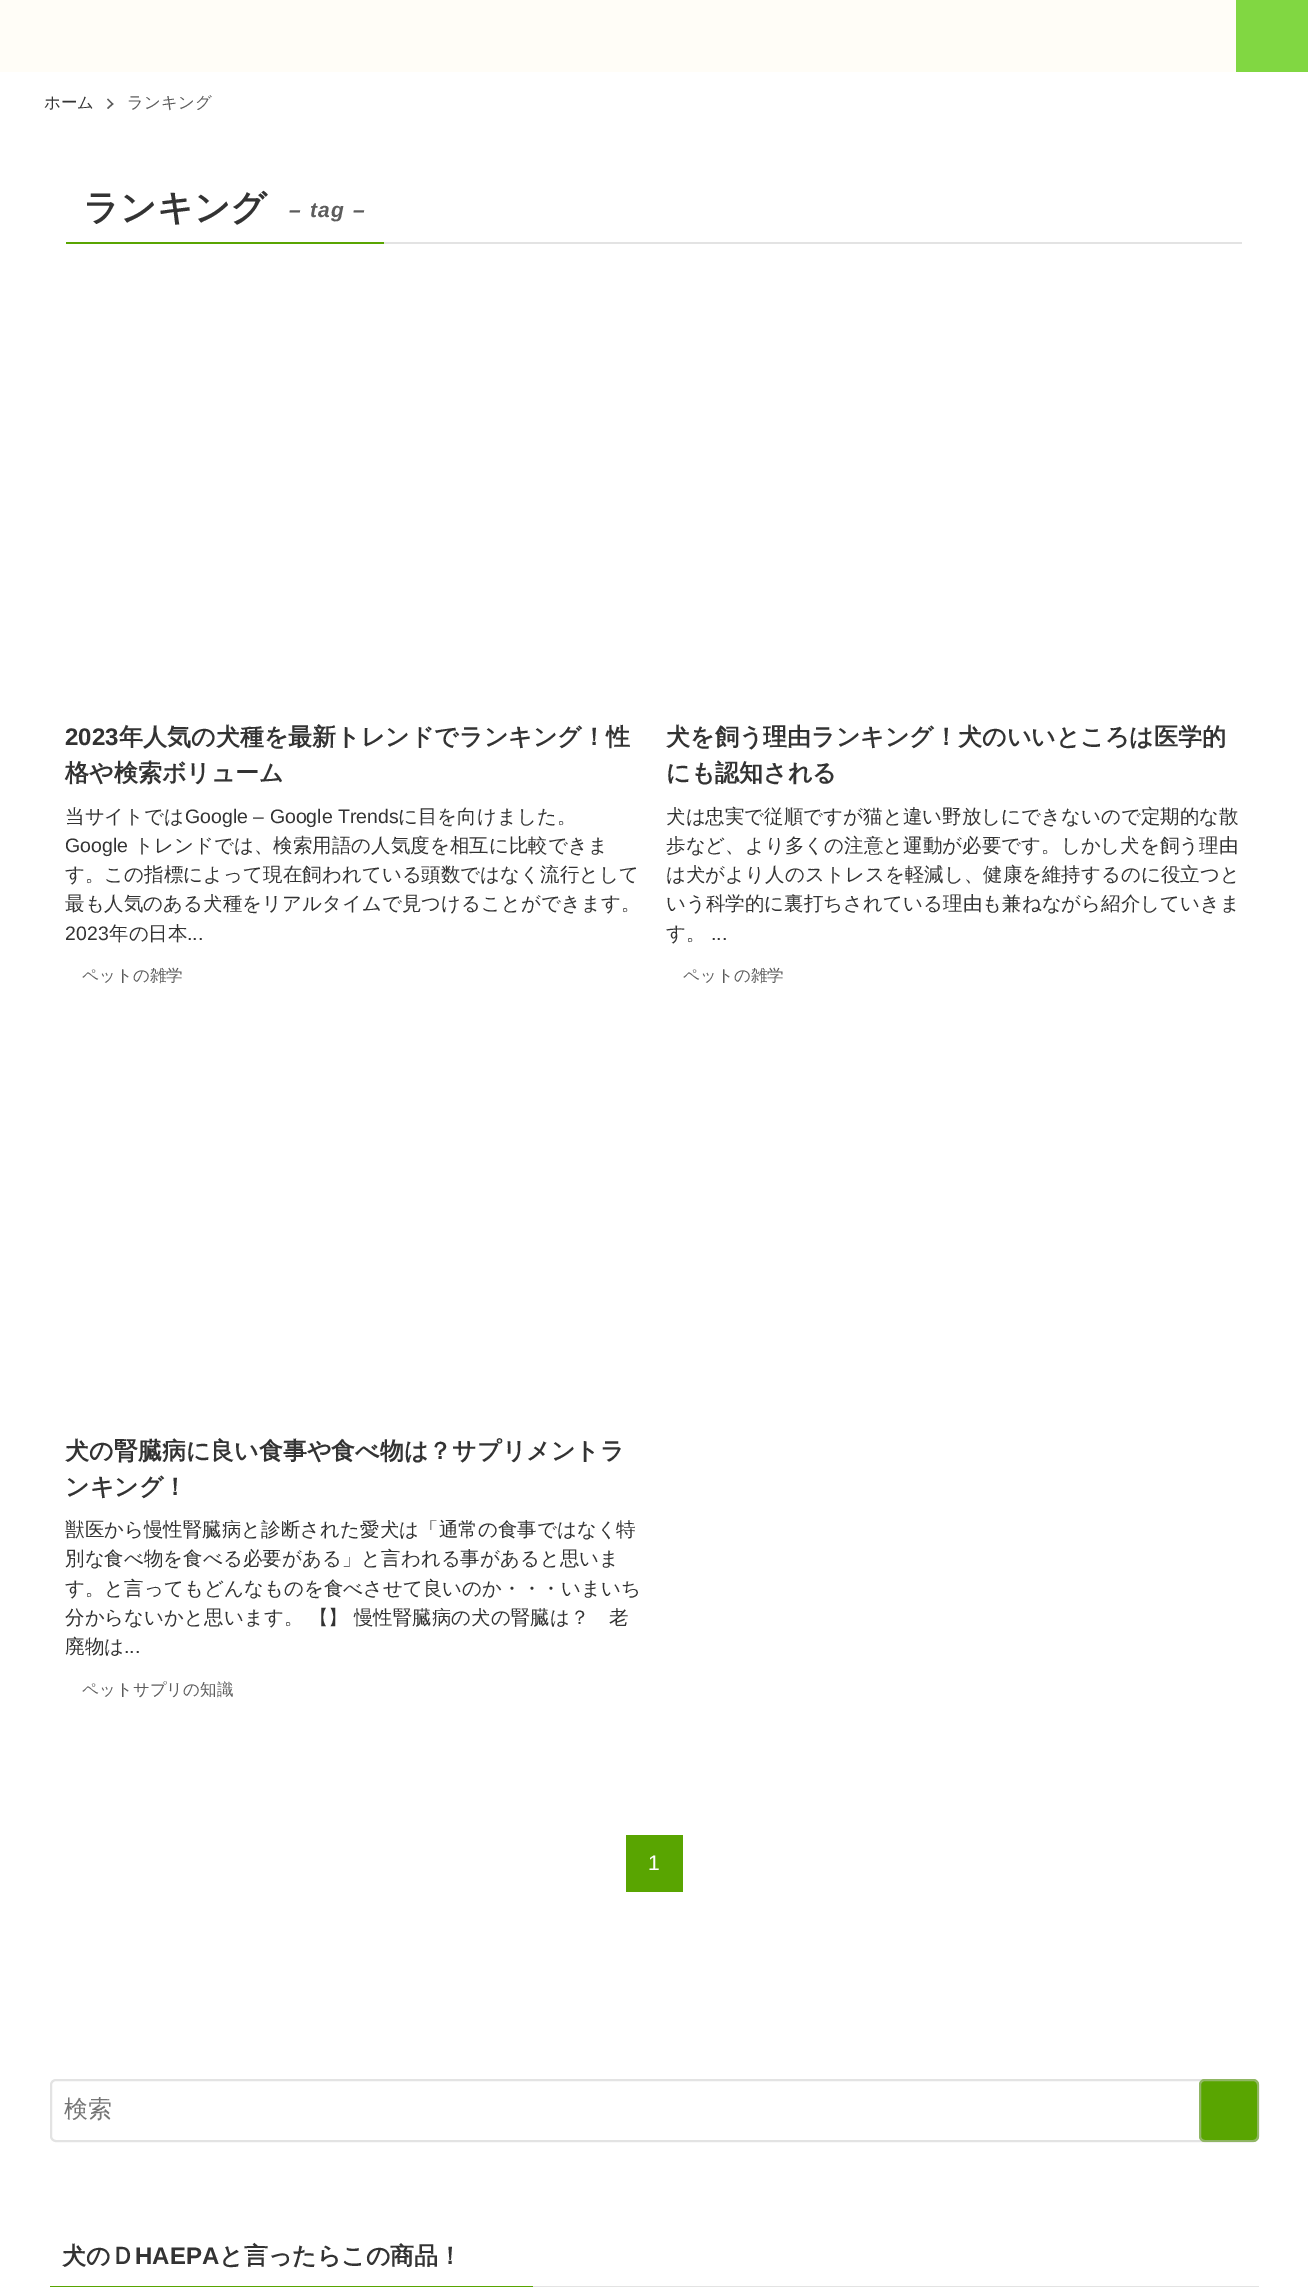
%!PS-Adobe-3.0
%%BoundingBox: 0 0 1308 2287
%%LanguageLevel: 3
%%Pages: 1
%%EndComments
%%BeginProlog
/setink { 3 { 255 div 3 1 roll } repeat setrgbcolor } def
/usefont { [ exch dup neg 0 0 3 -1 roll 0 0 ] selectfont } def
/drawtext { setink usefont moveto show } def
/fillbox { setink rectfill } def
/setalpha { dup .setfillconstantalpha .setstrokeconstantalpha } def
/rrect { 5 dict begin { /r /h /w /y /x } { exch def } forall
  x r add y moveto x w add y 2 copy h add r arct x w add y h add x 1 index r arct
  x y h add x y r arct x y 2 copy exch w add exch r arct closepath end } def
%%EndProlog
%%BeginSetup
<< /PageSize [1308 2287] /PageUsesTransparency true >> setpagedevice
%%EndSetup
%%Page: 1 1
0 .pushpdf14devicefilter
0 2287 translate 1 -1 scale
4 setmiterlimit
0 0 1308 2287 255 255 255 fillbox
0 0 1236 72 255 253 247 fillbox
1236 0 72 72 129 215 66 fillbox
(ホーム) 44 108 /WenQuanYiZenHei-Medium 16.5 51 51 51 drawtext
92 92 92 setink
108 98.5 moveto 113.5 104 lineto 112.5 105 lineto 107 99.5 lineto closepath fill
112.5 103 moveto 113.5 104 lineto 108 109 lineto 107 108 lineto closepath fill
(ランキング) 127 108 /WenQuanYiZenHei-Medium 16.5 92 92 92 drawtext
384 242 858 2 227 227 227 fillbox
66 242 318 2 89 165 1 fillbox
(ランキング) 83 220 /WenQuanYiZenHei-Bold 36 51 51 51 drawtext
/LiberationSans-BoldItalic 21 usefont
92 92 92 setink
289 217 moveto 1.5 0 (– tag –) ashow
(2023) 65 745 /LiberationSans-Bold 24 51 51 51 drawtext
(年人気の犬種を最新トレンドでランキング！性) 119 745 /WenQuanYiZenHei-Bold 24 51 51 51 drawtext
(格や検索ボリューム) 65 781 /WenQuanYiZenHei-Bold 24 51 51 51 drawtext
(当サイトでは) 65 823 /WenQuanYiZenHei-Medium 19.5 51 51 51 drawtext
(Google – Google Trends) 185 823 /LiberationSans-Regular 19.5 51 51 51 drawtext
(に目を向けました。) 398 823 /WenQuanYiZenHei-Medium 19.5 51 51 51 drawtext
(Google) 65 852 /LiberationSans-Regular 19.5 51 51 51 drawtext
(トレンドでは、検索用語の人気度を相互に比較できま) 134 852 /WenQuanYiZenHei-Medium 19.5 51 51 51 drawtext
(す。この指標によって現在飼われている頭数ではなく流行として) 65 881 /WenQuanYiZenHei-Medium 19.5 51 51 51 drawtext
(最も人気のある犬種をリアルタイムで見つけることができます。) 65 910 /WenQuanYiZenHei-Medium 19.5 51 51 51 drawtext
(2023) 65 940 /LiberationSans-Regular 19.5 51 51 51 drawtext
(年の日本) 109 940 /WenQuanYiZenHei-Medium 19.5 51 51 51 drawtext
(...) 187 940 /LiberationSans-Regular 19.5 51 51 51 drawtext
(ペットの雑学) 82 981 /WenQuanYiZenHei-Medium 16.5 92 92 92 drawtext
(犬を飼う理由ランキング！犬のいいところは医学的) 666 745 /WenQuanYiZenHei-Bold 24 51 51 51 drawtext
(にも認知される) 666 781 /WenQuanYiZenHei-Bold 24 51 51 51 drawtext
(犬は忠実で従順ですが猫と違い野放しにできないので定期的な散) 666 823 /WenQuanYiZenHei-Medium 19.5 51 51 51 drawtext
(歩など、より多くの注意と運動が必要です。しかし犬を飼う理由) 666 852 /WenQuanYiZenHei-Medium 19.5 51 51 51 drawtext
(は犬がより人のストレスを軽減し、健康を維持するのに役立つと) 666 881 /WenQuanYiZenHei-Medium 19.5 51 51 51 drawtext
(いう科学的に裏打ちされている理由も兼ねながら紹介していきま) 666 910 /WenQuanYiZenHei-Medium 19.5 51 51 51 drawtext
(す。) 666 940 /WenQuanYiZenHei-Medium 19.5 51 51 51 drawtext
(...) 711 940 /LiberationSans-Regular 19.5 51 51 51 drawtext
(ペットの雑学) 683 981 /WenQuanYiZenHei-Medium 16.5 92 92 92 drawtext
(犬の腎臓病に良い食事や食べ物は？サプリメントラ) 65 1459 /WenQuanYiZenHei-Bold 24 51 51 51 drawtext
(ンキング！) 65 1495 /WenQuanYiZenHei-Bold 24 51 51 51 drawtext
(獣医から慢性腎臓病と診断された愛犬は「通常の食事ではなく特) 65 1536 /WenQuanYiZenHei-Medium 19.5 51 51 51 drawtext
(別な食べ物を食べる必要がある」と言われる事があると思いま) 65 1565 /WenQuanYiZenHei-Medium 19.5 51 51 51 drawtext
(す。と言ってもどんなものを食べさせて良いのか・・・いまいち) 65 1595 /WenQuanYiZenHei-Medium 19.5 51 51 51 drawtext
(分からないかと思います。 【】 慢性腎臓病の犬の腎臓は？　老) 65 1624 /WenQuanYiZenHei-Medium 19.5 51 51 51 drawtext
(廃物は) 65 1653 /WenQuanYiZenHei-Medium 19.5 51 51 51 drawtext
(...) 124 1653 /LiberationSans-Regular 19.5 51 51 51 drawtext
(ペットサプリの知識) 82 1695 /WenQuanYiZenHei-Medium 16.5 92 92 92 drawtext
626 1835 57 57 89 165 1 fillbox
(1) 648 1870 /LiberationSans-Regular 21 255 255 255 drawtext
227 227 227 setink
2 setlinewidth
51 2080 1207 61 5 rrect stroke
(検索) 64 2117 /WenQuanYiZenHei-Medium 24 117 117 117 drawtext
89 165 1 setink
1199 2079 60 63 6 rrect fill
0.5 setalpha
199 199 199 setink
1200 2080 58 61 5 rrect stroke
1 setalpha
(犬のＤ) 62 2264 /WenQuanYiZenHei-Bold 24 51 51 51 drawtext
(HAEPA) 135 2264 /LiberationSans-Bold 24 51 51 51 drawtext
(と言ったらこの商品！) 219 2264 /WenQuanYiZenHei-Bold 24 51 51 51 drawtext
50 2286 483 1 89 165 1 fillbox
533 2286 726 1 227 227 227 fillbox
.poppdf14devicefilter showpage
%%EOF
